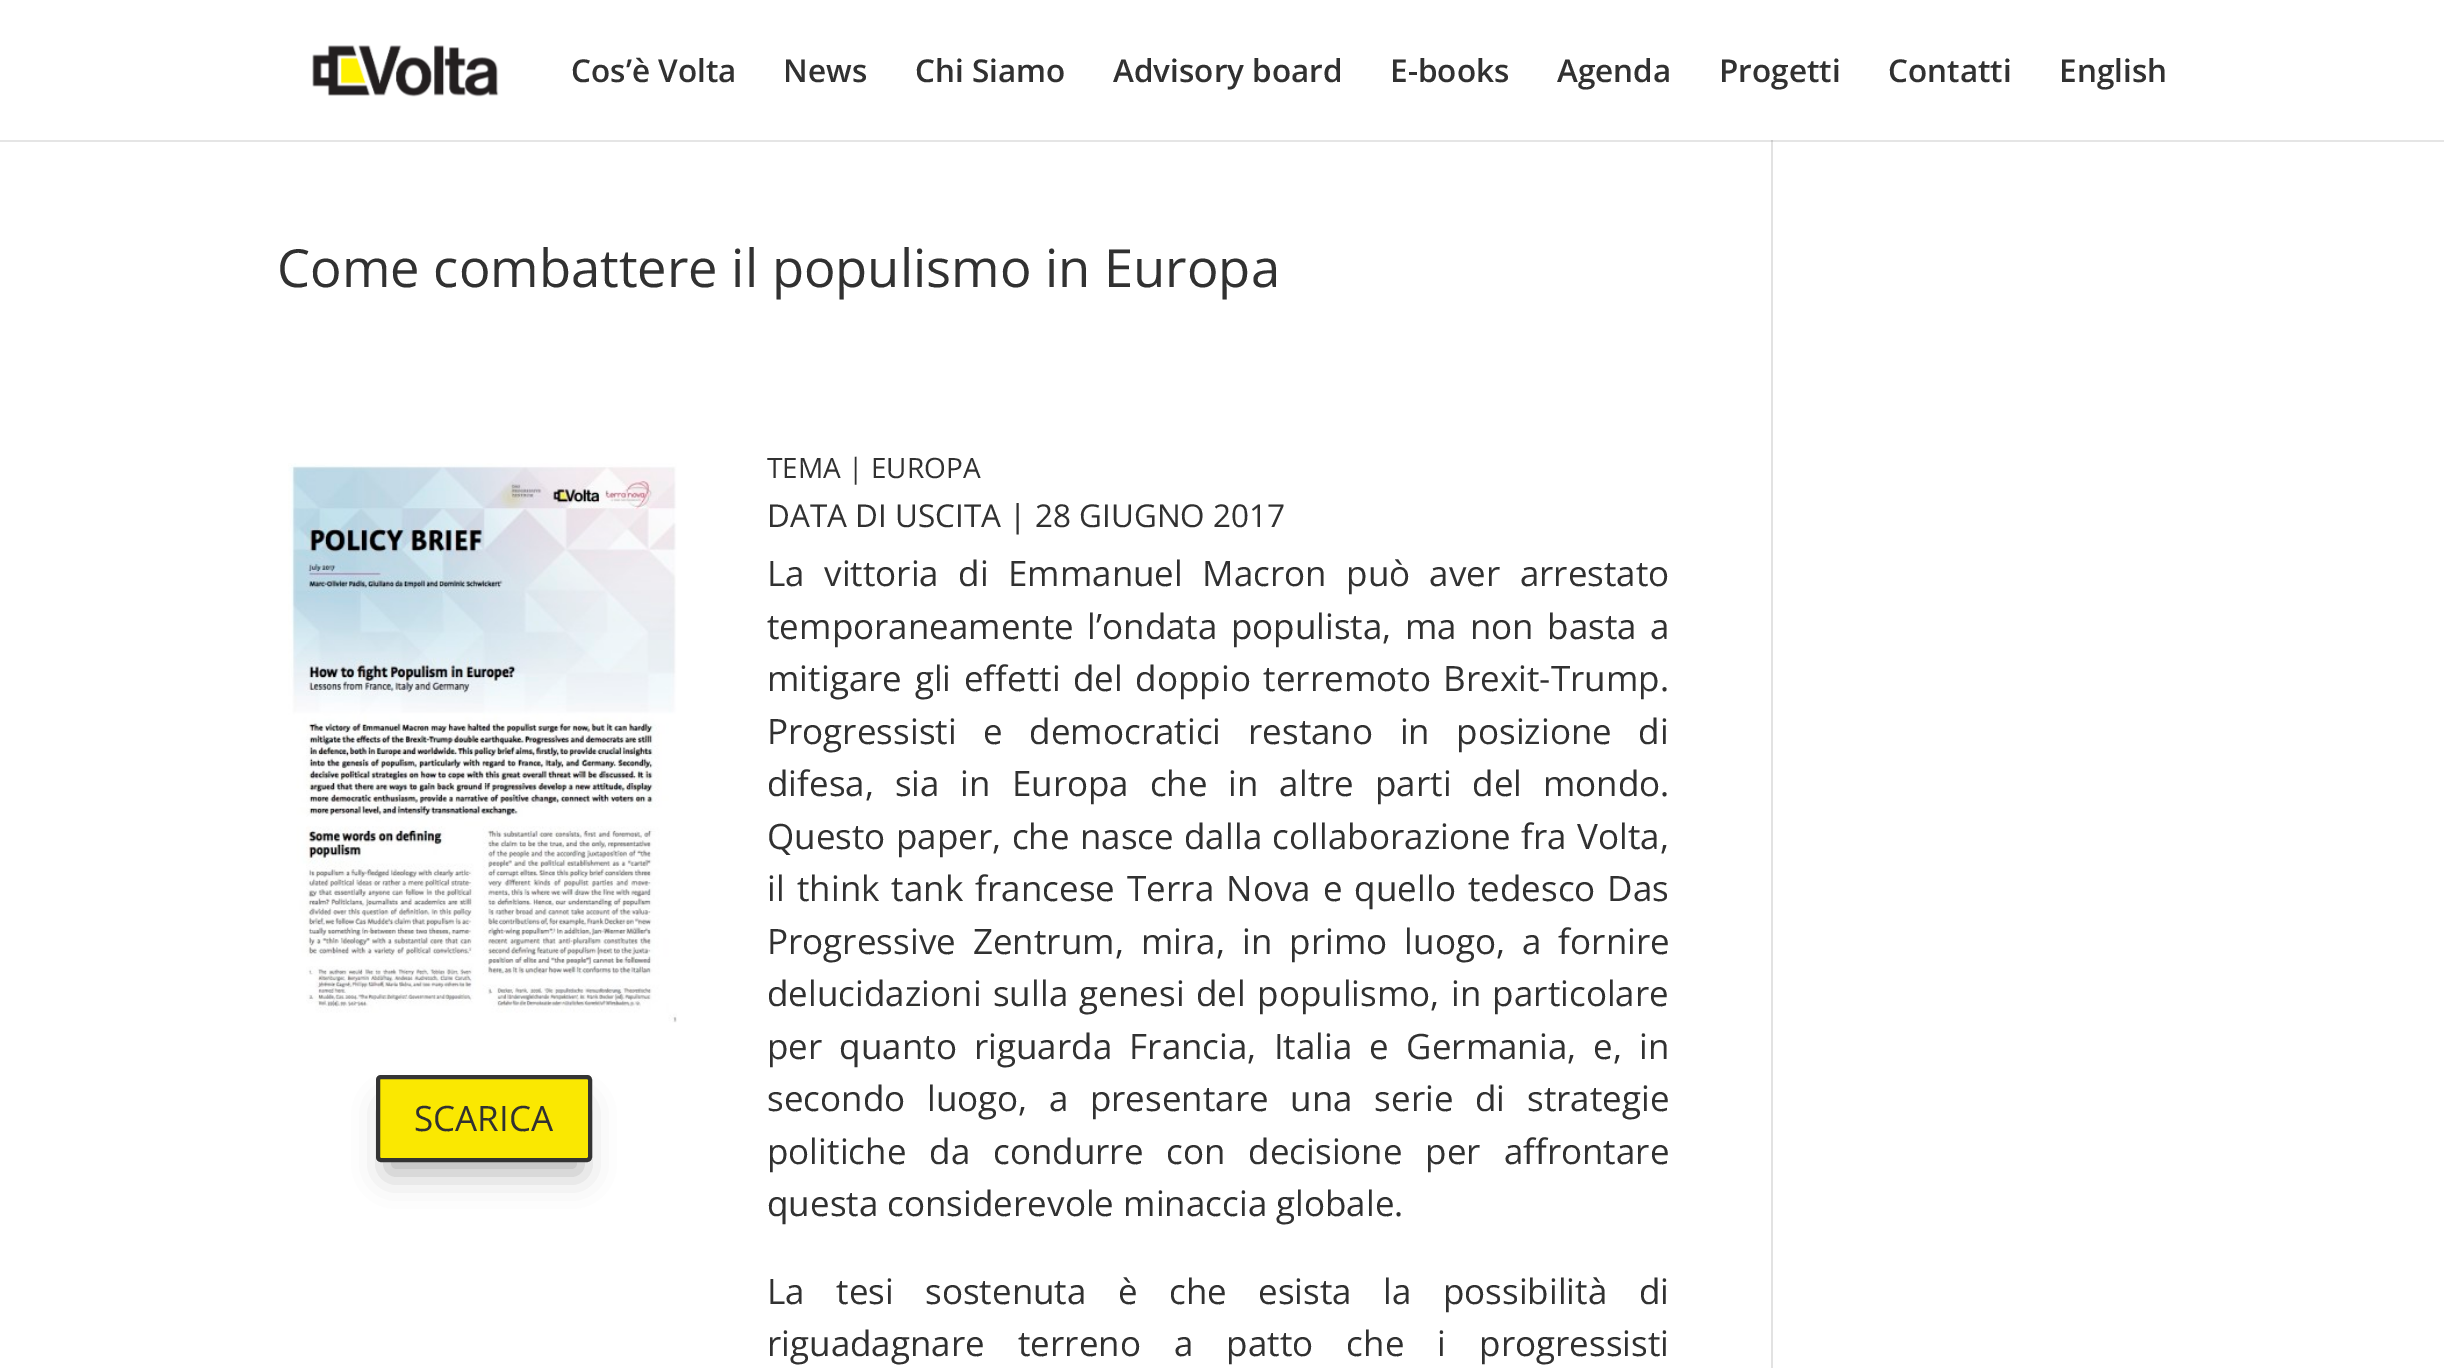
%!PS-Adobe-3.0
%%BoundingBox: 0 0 2444 1368
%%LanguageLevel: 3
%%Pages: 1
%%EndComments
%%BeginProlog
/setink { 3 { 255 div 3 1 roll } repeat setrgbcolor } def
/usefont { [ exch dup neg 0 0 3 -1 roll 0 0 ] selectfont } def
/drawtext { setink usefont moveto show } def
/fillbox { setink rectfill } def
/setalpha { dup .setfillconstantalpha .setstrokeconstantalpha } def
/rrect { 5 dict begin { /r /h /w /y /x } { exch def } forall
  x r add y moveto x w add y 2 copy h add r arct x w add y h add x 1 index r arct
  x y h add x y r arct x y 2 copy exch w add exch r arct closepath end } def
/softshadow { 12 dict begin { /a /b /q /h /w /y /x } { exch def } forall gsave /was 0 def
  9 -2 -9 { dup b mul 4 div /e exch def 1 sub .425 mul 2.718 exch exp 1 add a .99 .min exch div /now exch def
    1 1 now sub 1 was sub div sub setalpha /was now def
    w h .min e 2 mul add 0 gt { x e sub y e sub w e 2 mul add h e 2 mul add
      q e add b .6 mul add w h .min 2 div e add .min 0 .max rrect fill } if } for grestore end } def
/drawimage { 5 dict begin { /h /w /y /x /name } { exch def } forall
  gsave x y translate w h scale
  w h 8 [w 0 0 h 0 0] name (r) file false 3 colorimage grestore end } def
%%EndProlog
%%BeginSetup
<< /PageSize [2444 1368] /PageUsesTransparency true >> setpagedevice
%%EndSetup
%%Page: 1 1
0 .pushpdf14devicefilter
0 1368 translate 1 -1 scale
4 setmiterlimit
0 0 2444 1368 255 255 255 fillbox
1771 140 2 1228 226 226 226 fillbox
0.1 setalpha
0 0 0 setink
0 140 moveto 0 142 lineto 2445 142 lineto 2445 2 lineto 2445 140 lineto closepath fill
1 setalpha
(assets/img1.rgb) 312 45 187 52 drawimage
(Cos’è Volta) 571 82 /OpenSans-SemiBold 31.5 49 49 49 drawtext
(News) 783 82 /OpenSans-SemiBold 31.5 49 49 49 drawtext
(Chi Siamo) 915 82 /OpenSans-SemiBold 31.5 49 49 49 drawtext
(Advisory board) 1113 82 /OpenSans-SemiBold 31.5 49 49 49 drawtext
(E-books) 1390 82 /OpenSans-SemiBold 31.5 49 49 49 drawtext
(Agenda) 1557 82 /OpenSans-SemiBold 31.5 49 49 49 drawtext
(Progetti) 1719 82 /OpenSans-SemiBold 31.5 49 49 49 drawtext
(Contatti) 1888 82 /OpenSans-SemiBold 31.5 49 49 49 drawtext
(English) 2059 82 /OpenSans-SemiBold 31.5 49 49 49 drawtext
(Come combattere il populismo in Europa) 277 287 /OpenSans-Regular 52.5 49 49 49 drawtext
(assets/img2.rgb) 288 463 389 560 drawimage
0 0 0 setink
387 1106 194 67 0 16 0.3 softshadow
250 232 1 setink
378 1077 212 83 3 rrect gsave fill grestore
51 51 51 setink
4 setlinewidth
stroke
(SCARICA) 414 1131 /OpenSans-Regular 35 49 49 49 drawtext
(TEMA | EUROPA) 767 478 /OpenSans-Regular 28 49 49 49 drawtext
(DATA DI USCITA | 28 GIUGNO 2017) 767 527 /OpenSans-Regular 31.5 49 49 49 drawtext
/OpenSans-Regular 35 usefont
767 586 moveto 10.25 0 32 (La vittoria di Emmanuel Macron può aver arrestato) widthshow
767 639 moveto 4.25 0 32 (temporaneamente l’ondata populista, ma non basta a) widthshow
767 691 moveto 3.5 0 32 (mitigare gli effetti del doppio terremoto Brexit-Trump.) widthshow
767 744 moveto 17.5 0 32 (Progressisti e democratici restano in posizione di) widthshow
767 796 moveto 11.75 0 32 (difesa, sia in Europa che in altre parti del mondo.) widthshow
767 849 moveto 1.25 0 32 (Questo paper, che nasce dalla collaborazione fra Volta,) widthshow
767 901 moveto 3 0 32 (il think tank francese Terra Nova e quello tedesco Das) widthshow
767 954 moveto 8 0 32 (Progressive Zentrum, mira, in primo luogo, a fornire) widthshow
767 1006 moveto 2.25 0 32 (delucidazioni sulla genesi del populismo, in particolare) widthshow
767 1059 moveto 8 0 32 (per quanto riguarda Francia, Italia e Germania, e, in) widthshow
767 1111 moveto 12.5 0 32 (secondo luogo, a presentare una serie di strategie) widthshow
767 1164 moveto 13.75 0 32 (politiche da condurre con decisione per affrontare) widthshow
(questa considerevole minaccia globale.) 767 1216 /OpenSans-Regular 35 49 49 49 drawtext
767 1304 moveto 22.25 0 32 (La tesi sostenuta è che esista la possibilità di) widthshow
767 1356 moveto 24 0 32 (riguadagnare terreno a patto che i progressisti) widthshow
.poppdf14devicefilter showpage
%%EOF
